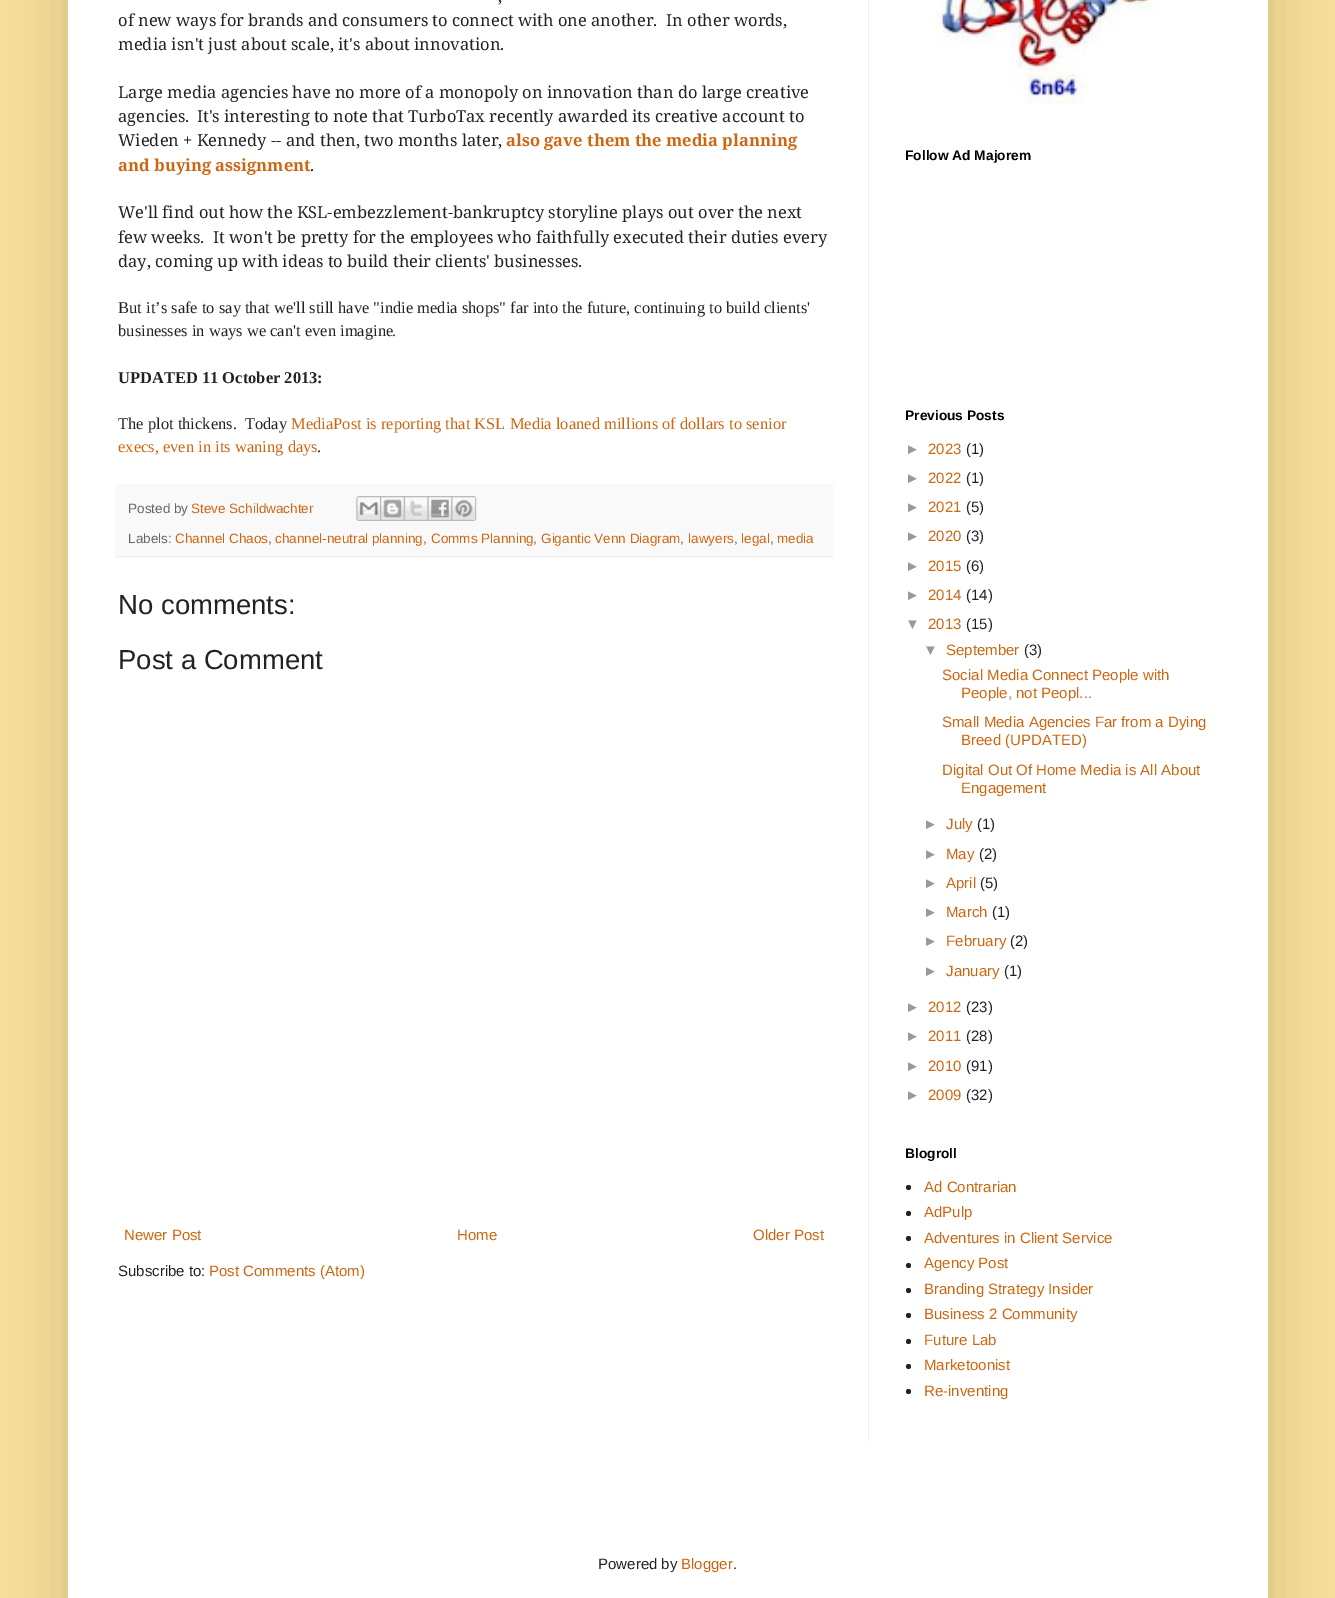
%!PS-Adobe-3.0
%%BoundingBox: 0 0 1335 1598
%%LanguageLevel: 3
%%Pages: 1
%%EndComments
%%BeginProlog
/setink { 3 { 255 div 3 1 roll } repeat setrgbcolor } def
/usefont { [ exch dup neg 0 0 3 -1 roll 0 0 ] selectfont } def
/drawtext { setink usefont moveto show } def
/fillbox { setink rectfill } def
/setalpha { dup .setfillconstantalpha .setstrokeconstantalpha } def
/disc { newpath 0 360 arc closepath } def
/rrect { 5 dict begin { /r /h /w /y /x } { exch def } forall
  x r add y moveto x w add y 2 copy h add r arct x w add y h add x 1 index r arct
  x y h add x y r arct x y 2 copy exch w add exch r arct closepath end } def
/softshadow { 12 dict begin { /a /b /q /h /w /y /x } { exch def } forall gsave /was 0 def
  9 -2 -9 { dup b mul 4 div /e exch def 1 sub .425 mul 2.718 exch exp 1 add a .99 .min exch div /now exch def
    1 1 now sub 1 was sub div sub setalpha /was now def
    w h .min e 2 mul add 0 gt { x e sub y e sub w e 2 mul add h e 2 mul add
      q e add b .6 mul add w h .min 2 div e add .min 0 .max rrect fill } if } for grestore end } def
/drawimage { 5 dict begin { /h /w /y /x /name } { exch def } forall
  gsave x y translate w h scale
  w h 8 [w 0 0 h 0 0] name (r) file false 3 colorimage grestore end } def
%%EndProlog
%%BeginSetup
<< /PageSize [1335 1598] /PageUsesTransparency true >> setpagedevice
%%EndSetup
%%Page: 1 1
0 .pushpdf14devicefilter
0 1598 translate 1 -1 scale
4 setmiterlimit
0 0 1335 1598 246 221 153 fillbox
0 0 0 setink
68 -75 1200 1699 0 25 0.15 softshadow
68 0 1200 1598 255 255 255 fillbox
(,) 498 2 /NotoSerif-Regular 16.5 34 34 34 drawtext
(of new ways for brands and consumers to connect with one another.  In other words,) 118 26 /NotoSerif-Regular 16.5 34 34 34 drawtext
(media isn't just about scale, it's about innovation.) 118 50 /NotoSerif-Regular 16.5 34 34 34 drawtext
(Large media agencies have no more of a monopoly on innovation than do large creative) 118 98 /NotoSerif-Regular 16.5 34 34 34 drawtext
(agencies.) 118 122 /NotoSerif-Regular 16.5 34 34 34 drawtext
(It's interesting to note that TurboTax recently awarded its creative account to) 197 122 /NotoSerif-Regular 16.5 34 34 34 drawtext
(Wieden + Kennedy -- and then, two months later,) 118 146 /NotoSerif-Regular 16.5 34 34 34 drawtext
(also gave them the media planning) 506 146 /NotoSerif-Bold 16.5 204 102 17 drawtext
(and buying assignment) 118 171 /NotoSerif-Bold 16.5 204 102 17 drawtext
(.) 310 171 /NotoSerif-Regular 16.5 34 34 34 drawtext
(We'll find out how the KSL-embezzlement-bankruptcy storyline plays out over the next) 118 218 /NotoSerif-Regular 16.5 34 34 34 drawtext
(few weeks.  It won't be pretty for the employees who faithfully executed their duties every) 118 243 /NotoSerif-Regular 16.5 34 34 34 drawtext
(day, coming up with ideas to build their clients' businesses.) 118 267 /NotoSerif-Regular 16.5 34 34 34 drawtext
(But it’s safe to say that we'll still have "indie media shops" far into the future, continuing to build clients') 118 313 /LiberationSerif-Regular 16.5 34 34 34 drawtext
(businesses in ways we can't even imagine) 118 336 /LiberationSerif-Regular 16.5 34 34 34 drawtext
(.) 392 336 /LiberationSerif-Regular 16.5 31 73 125 drawtext
(UPDATED 11 October 2013:) 118 383 /LiberationSerif-Bold 16.5 34 34 34 drawtext
(The plot thickens.  Today) 118 429 /LiberationSerif-Regular 16.5 34 34 34 drawtext
(MediaPost is reporting that KSL Media loaned millions of dollars to senior) 291 429 /LiberationSerif-Regular 16.5 204 102 17 drawtext
(execs, even in its waning days) 118 452 /LiberationSerif-Regular 16.5 204 102 17 drawtext
(.) 317 452 /LiberationSerif-Regular 16.5 34 34 34 drawtext
115 484 718 74 249 249 249 fillbox
115 556 718 1 238 238 238 fillbox
(Posted by) 128 513 /LiberationSans-Regular 13.5 102 102 102 drawtext
(Steve Schildwachter) 191 513 /LiberationSans-Regular 13.5 204 102 17 drawtext
(assets/img1.rgb) 356 496 24 25 drawimage
(assets/img2.rgb) 380 496 24 25 drawimage
(assets/img3.rgb) 403 496 25 25 drawimage
(assets/img4.rgb) 427 496 25 25 drawimage
(assets/img5.rgb) 451 496 26 25 drawimage
(Labels:) 128 543 /LiberationSans-Regular 13.5 102 102 102 drawtext
(Channel Chaos) 175 543 /LiberationSans-Regular 13.5 204 102 17 drawtext
(,) 268 543 /LiberationSans-Regular 13.5 102 102 102 drawtext
(channel-neutral planning) 275 543 /LiberationSans-Regular 13.5 204 102 17 drawtext
(,) 423 543 /LiberationSans-Regular 13.5 102 102 102 drawtext
(Comms Planning) 431 543 /LiberationSans-Regular 13.5 204 102 17 drawtext
(,) 533 543 /LiberationSans-Regular 13.5 102 102 102 drawtext
(Gigantic Venn Diagram) 541 543 /LiberationSans-Regular 13.5 204 102 17 drawtext
(,) 680 543 /LiberationSans-Regular 13.5 102 102 102 drawtext
(lawyers) 688 543 /LiberationSans-Regular 13.5 204 102 17 drawtext
(,) 734 543 /LiberationSans-Regular 13.5 102 102 102 drawtext
(legal) 741 543 /LiberationSans-Regular 13.5 204 102 17 drawtext
(,) 770 543 /LiberationSans-Regular 13.5 102 102 102 drawtext
(media) 777 543 /LiberationSans-Regular 13.5 204 102 17 drawtext
(No comments:) 118 614 /LiberationSans-Regular 27.5 34 34 34 drawtext
(Post a Comment) 118 669 /LiberationSans-Regular 27.5 34 34 34 drawtext
(Newer Post) 124 1240 /LiberationSans-Regular 15 204 102 17 drawtext
(Home) 457 1240 /LiberationSans-Regular 15 204 102 17 drawtext
(Older Post) 753 1240 /LiberationSans-Regular 15 204 102 17 drawtext
(Subscribe to:) 118 1276 /LiberationSans-Regular 15 34 34 34 drawtext
(Post Comments \(Atom\)) 209 1276 /LiberationSans-Regular 15 204 102 17 drawtext
(assets/img6.rgb) 935 0 226 104 drawimage
(Follow Ad Majorem) 905 160 /LiberationSans-Bold 13.75 0 0 0 drawtext
(Previous Posts) 905 420 /LiberationSans-Bold 13.75 0 0 0 drawtext
(►) 905 454 /LiberationSans-Regular 15 153 153 153 drawtext
(2023) 928 454 /LiberationSans-Regular 15 204 102 17 drawtext
(\(1\)) 966 454 /LiberationSans-Regular 15 34 34 34 drawtext
(►) 905 483 /LiberationSans-Regular 15 153 153 153 drawtext
(2022) 928 483 /LiberationSans-Regular 15 204 102 17 drawtext
(\(1\)) 966 483 /LiberationSans-Regular 15 34 34 34 drawtext
(►) 905 512 /LiberationSans-Regular 15 153 153 153 drawtext
(2021) 928 512 /LiberationSans-Regular 15 204 102 17 drawtext
(\(5\)) 966 512 /LiberationSans-Regular 15 34 34 34 drawtext
(►) 905 541 /LiberationSans-Regular 15 153 153 153 drawtext
(2020) 928 541 /LiberationSans-Regular 15 204 102 17 drawtext
(\(3\)) 966 541 /LiberationSans-Regular 15 34 34 34 drawtext
(►) 905 571 /LiberationSans-Regular 15 153 153 153 drawtext
(2015) 928 571 /LiberationSans-Regular 15 204 102 17 drawtext
(\(6\)) 966 571 /LiberationSans-Regular 15 34 34 34 drawtext
(►) 905 600 /LiberationSans-Regular 15 153 153 153 drawtext
(2014) 928 600 /LiberationSans-Regular 15 204 102 17 drawtext
(\(14\)) 966 600 /LiberationSans-Regular 15 34 34 34 drawtext
(▼) 905 629 /LiberationSans-Regular 15 153 153 153 drawtext
(2013) 928 629 /LiberationSans-Regular 15 204 102 17 drawtext
(\(15\)) 966 629 /LiberationSans-Regular 15 34 34 34 drawtext
(▼) 923 655 /LiberationSans-Regular 15 153 153 153 drawtext
(September) 946 655 /LiberationSans-Regular 15 204 102 17 drawtext
(\(3\)) 1024 655 /LiberationSans-Regular 15 34 34 34 drawtext
(Social Media Connect People with) 942 680 /LiberationSans-Regular 15 204 102 17 drawtext
(People, not Peopl...) 961 698 /LiberationSans-Regular 15 204 102 17 drawtext
(Small Media Agencies Far from a Dying) 942 727 /LiberationSans-Regular 15 204 102 17 drawtext
(Breed \(UPDATED\)) 961 745 /LiberationSans-Regular 15 204 102 17 drawtext
(Digital Out Of Home Media is All About) 942 775 /LiberationSans-Regular 15 204 102 17 drawtext
(Engagement) 961 793 /LiberationSans-Regular 15 204 102 17 drawtext
(►) 923 829 /LiberationSans-Regular 15 153 153 153 drawtext
(July) 946 829 /LiberationSans-Regular 15 204 102 17 drawtext
(\(1\)) 977 829 /LiberationSans-Regular 15 34 34 34 drawtext
(►) 923 859 /LiberationSans-Regular 15 153 153 153 drawtext
(May) 946 859 /LiberationSans-Regular 15 204 102 17 drawtext
(\(2\)) 979 859 /LiberationSans-Regular 15 34 34 34 drawtext
(►) 923 888 /LiberationSans-Regular 15 153 153 153 drawtext
(April) 946 888 /LiberationSans-Regular 15 204 102 17 drawtext
(\(5\)) 980 888 /LiberationSans-Regular 15 34 34 34 drawtext
(►) 923 917 /LiberationSans-Regular 15 153 153 153 drawtext
(March) 946 917 /LiberationSans-Regular 15 204 102 17 drawtext
(\(1\)) 992 917 /LiberationSans-Regular 15 34 34 34 drawtext
(►) 923 946 /LiberationSans-Regular 15 153 153 153 drawtext
(February) 946 946 /LiberationSans-Regular 15 204 102 17 drawtext
(\(2\)) 1010 946 /LiberationSans-Regular 15 34 34 34 drawtext
(►) 923 976 /LiberationSans-Regular 15 153 153 153 drawtext
(January) 946 976 /LiberationSans-Regular 15 204 102 17 drawtext
(\(1\)) 1004 976 /LiberationSans-Regular 15 34 34 34 drawtext
(►) 905 1012 /LiberationSans-Regular 15 153 153 153 drawtext
(2012) 928 1012 /LiberationSans-Regular 15 204 102 17 drawtext
(\(23\)) 966 1012 /LiberationSans-Regular 15 34 34 34 drawtext
(►) 905 1041 /LiberationSans-Regular 15 153 153 153 drawtext
(2011) 928 1041 /LiberationSans-Regular 15 204 102 17 drawtext
(\(28\)) 966 1041 /LiberationSans-Regular 15 34 34 34 drawtext
(►) 905 1071 /LiberationSans-Regular 15 153 153 153 drawtext
(2010) 928 1071 /LiberationSans-Regular 15 204 102 17 drawtext
(\(91\)) 966 1071 /LiberationSans-Regular 15 34 34 34 drawtext
(►) 905 1100 /LiberationSans-Regular 15 153 153 153 drawtext
(2009) 928 1100 /LiberationSans-Regular 15 204 102 17 drawtext
(\(32\)) 966 1100 /LiberationSans-Regular 15 34 34 34 drawtext
(Blogroll) 905 1158 /LiberationSans-Bold 13.75 0 0 0 drawtext
34 34 34 setink
908.5 1187.5 2.5 disc fill
(Ad Contrarian) 924 1192 /LiberationSans-Regular 15 204 102 17 drawtext
34 34 34 setink
908.5 1213.5 2.5 disc fill
(AdPulp) 924 1217 /LiberationSans-Regular 15 204 102 17 drawtext
34 34 34 setink
908.5 1238.5 2.5 disc fill
(Adventures in Client Service) 924 1243 /LiberationSans-Regular 15 204 102 17 drawtext
34 34 34 setink
908.5 1265.5 2.5 disc fill
(Agency Post) 924 1268 /LiberationSans-Regular 15 204 102 17 drawtext
34 34 34 setink
908.5 1290.5 2.5 disc fill
(Branding Strategy Insider) 924 1294 /LiberationSans-Regular 15 204 102 17 drawtext
34 34 34 setink
908.5 1315.5 2.5 disc fill
(Business 2 Community) 924 1319 /LiberationSans-Regular 15 204 102 17 drawtext
34 34 34 setink
908.5 1341.5 2.5 disc fill
(Future Lab) 924 1345 /LiberationSans-Regular 15 204 102 17 drawtext
34 34 34 setink
908.5 1366.5 2.5 disc fill
(Marketoonist) 924 1370 /LiberationSans-Regular 15 204 102 17 drawtext
34 34 34 setink
908.5 1391.5 2.5 disc fill
(Re-inventing) 924 1396 /LiberationSans-Regular 15 204 102 17 drawtext
868 0 1 1441 238 238 238 fillbox
(Powered by) 598 1569 /LiberationSans-Regular 15 34 34 34 drawtext
(Blogger) 681 1569 /LiberationSans-Regular 15 204 102 17 drawtext
(.) 733 1569 /LiberationSans-Regular 15 34 34 34 drawtext
.poppdf14devicefilter showpage
%%EOF
